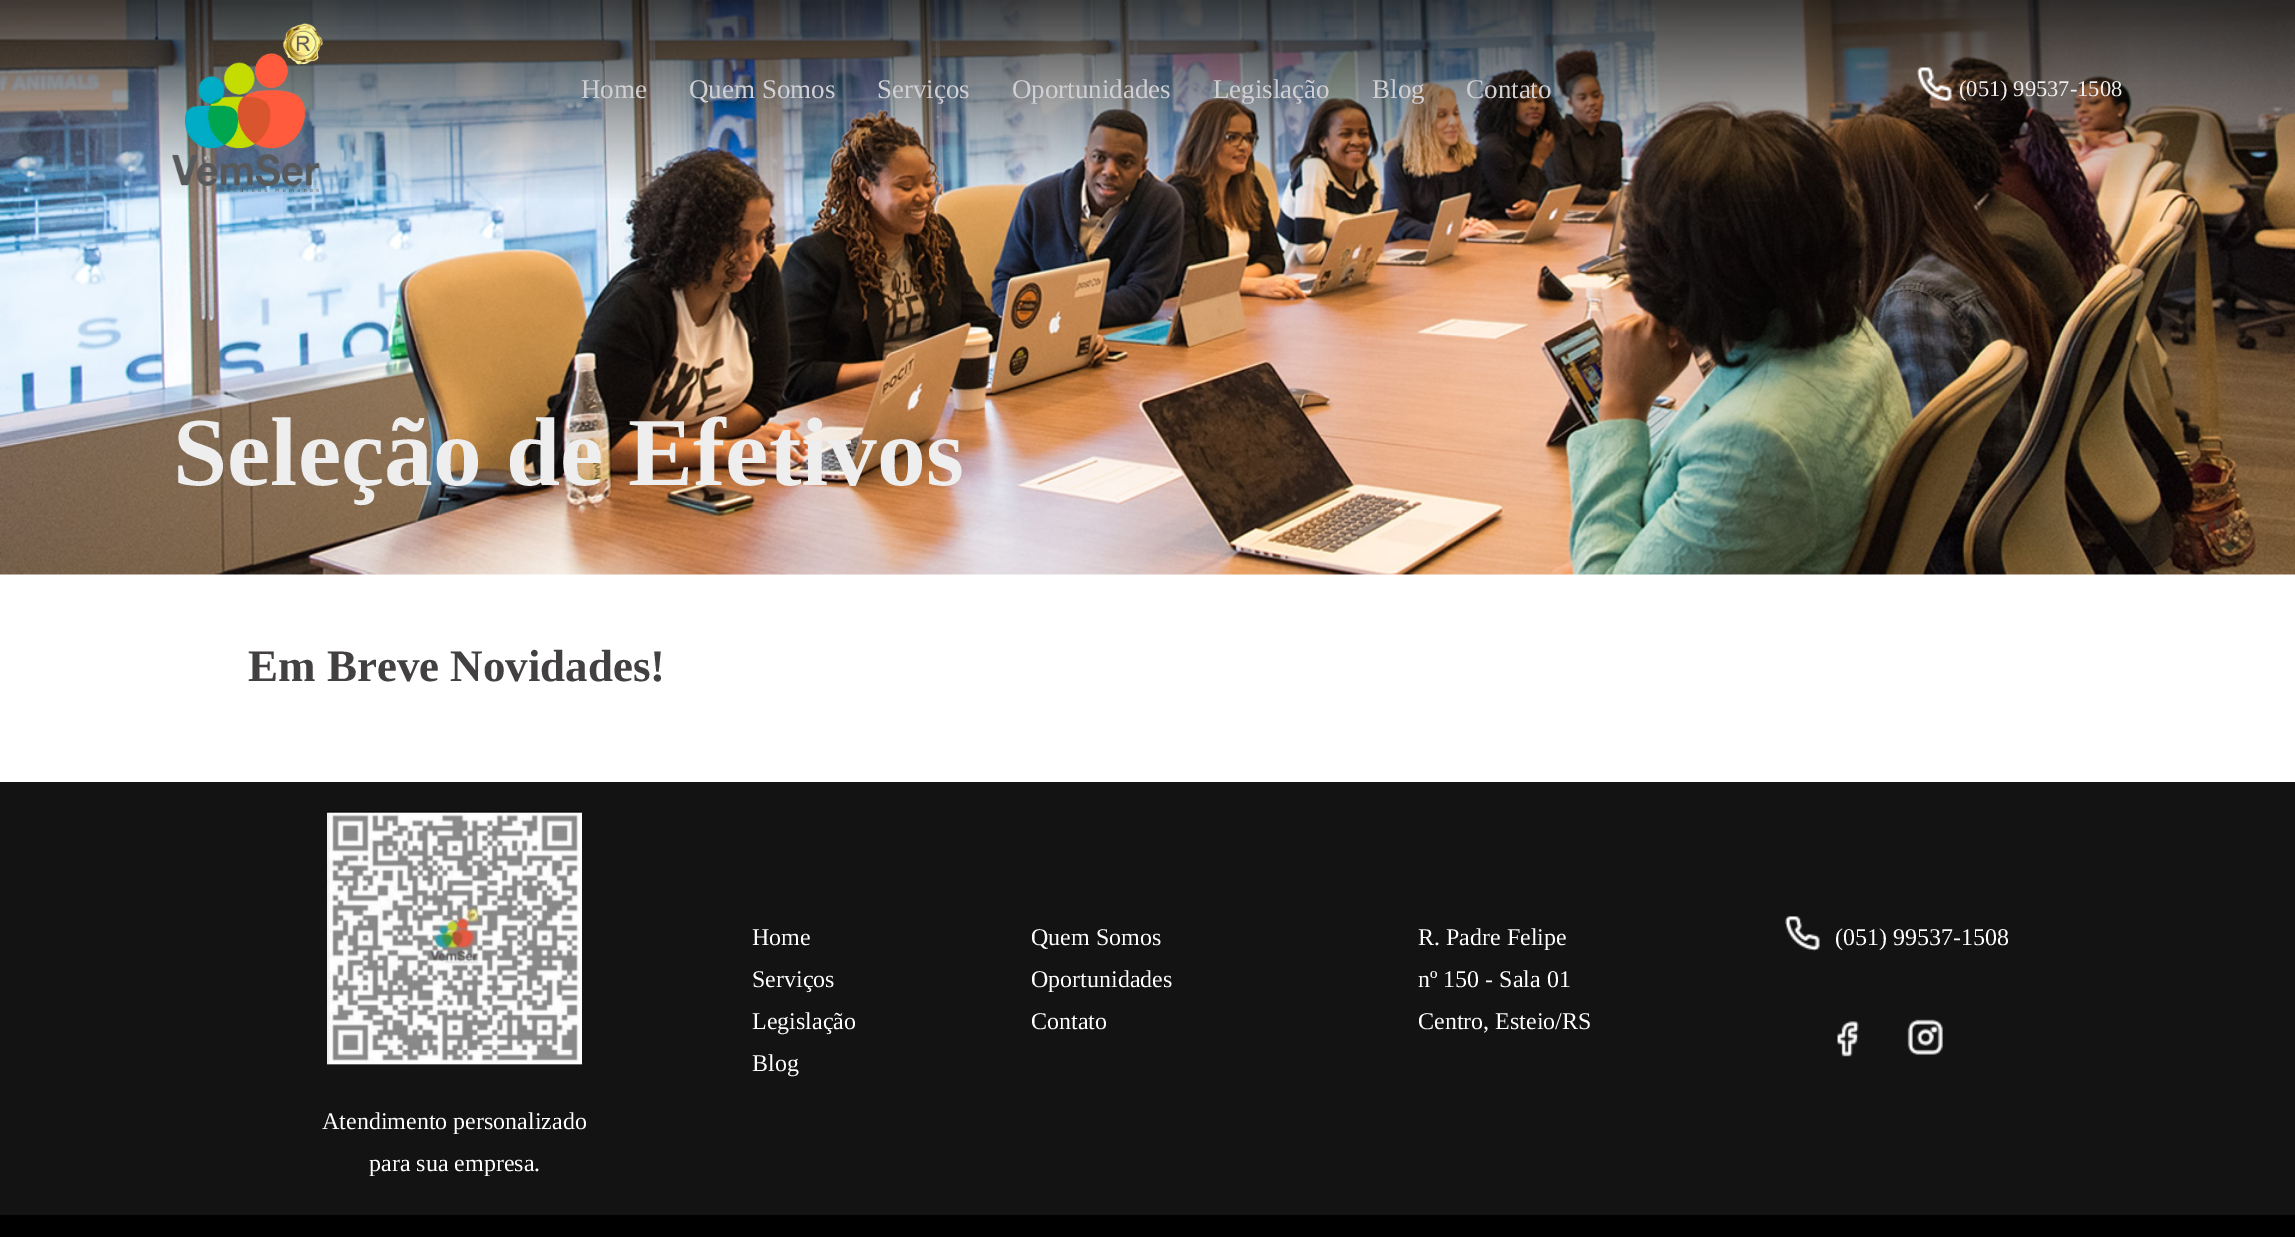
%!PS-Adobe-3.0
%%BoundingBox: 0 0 2295 1237
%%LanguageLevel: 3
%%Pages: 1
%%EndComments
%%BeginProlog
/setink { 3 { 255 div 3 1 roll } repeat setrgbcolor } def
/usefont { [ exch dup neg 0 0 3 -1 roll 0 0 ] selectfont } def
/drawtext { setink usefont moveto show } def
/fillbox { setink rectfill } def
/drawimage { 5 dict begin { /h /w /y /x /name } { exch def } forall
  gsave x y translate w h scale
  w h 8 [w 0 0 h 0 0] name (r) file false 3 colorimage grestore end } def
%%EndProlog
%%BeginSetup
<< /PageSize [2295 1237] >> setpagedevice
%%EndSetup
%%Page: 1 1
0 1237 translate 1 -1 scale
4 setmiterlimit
0 0 2295 1237 255 255 255 fillbox
(assets/img1.rgb) 0 0 2295 575 drawimage
(assets/img2.rgb) 172 23 151 169 drawimage
(Home) 581 98 /LiberationSerif-Regular 27 208 208 212 drawtext
(Quem Somos) 689 98 /LiberationSerif-Regular 27 208 208 212 drawtext
(Serviços) 877 98 /LiberationSerif-Regular 27 208 208 212 drawtext
(Oportunidades) 1012 98 /LiberationSerif-Regular 27 208 208 212 drawtext
(Legislação) 1213 98 /LiberationSerif-Regular 27 208 208 212 drawtext
(Blog) 1372 98 /LiberationSerif-Regular 27 208 208 212 drawtext
(Contato) 1466 98 /LiberationSerif-Regular 27 208 208 212 drawtext
(assets/img3.rgb) 1917 67 35 35 drawimage
(\(051\) 99537-1508) 1959 96 /LiberationSerif-Regular 22.5 238 238 238 drawtext
(Seleção de Efetivos) 173 485 /LiberationSerif-Bold 97.5 238 238 238 drawtext
(Em Breve Novidades!) 248 681 /LiberationSerif-Bold 45 67 64 65 drawtext
0 782 2295 433 19 19 19 fillbox
(Home) 752 945 /LiberationSerif-Regular 24 255 255 255 drawtext
(Quem Somos) 1031 945 /LiberationSerif-Regular 24 255 255 255 drawtext
(Serviços) 752 987 /LiberationSerif-Regular 24 255 255 255 drawtext
(Oportunidades) 1031 987 /LiberationSerif-Regular 24 255 255 255 drawtext
(Legislação) 752 1029 /LiberationSerif-Regular 24 255 255 255 drawtext
(Contato) 1031 1029 /LiberationSerif-Regular 24 255 255 255 drawtext
(Blog) 752 1071 /LiberationSerif-Regular 24 255 255 255 drawtext
(R. Padre Felipe) 1418 945 /LiberationSerif-Regular 24 255 255 255 drawtext
(nº 150 - Sala 01) 1418 987 /LiberationSerif-Regular 24 255 255 255 drawtext
(Centro, Esteio/RS) 1418 1029 /LiberationSerif-Regular 24 255 255 255 drawtext
(assets/img4.rgb) 1785 916 35 35 drawimage
(\(051\) 99537-1508) 1835 945 /LiberationSerif-Regular 24 255 255 255 drawtext
(assets/img5.rgb) 1837 1021 22 36 drawimage
(assets/img6.rgb) 1907 1019 36 36 drawimage
(assets/img7.rgb) 327 811 255 254 drawimage
(Atendimento personalizado) 322 1129 /LiberationSerif-Regular 24 255 255 255 drawtext
(para sua empresa.) 369 1171 /LiberationSerif-Regular 24 255 255 255 drawtext
0 1215 2295 22 0 0 0 fillbox
showpage
%%EOF
